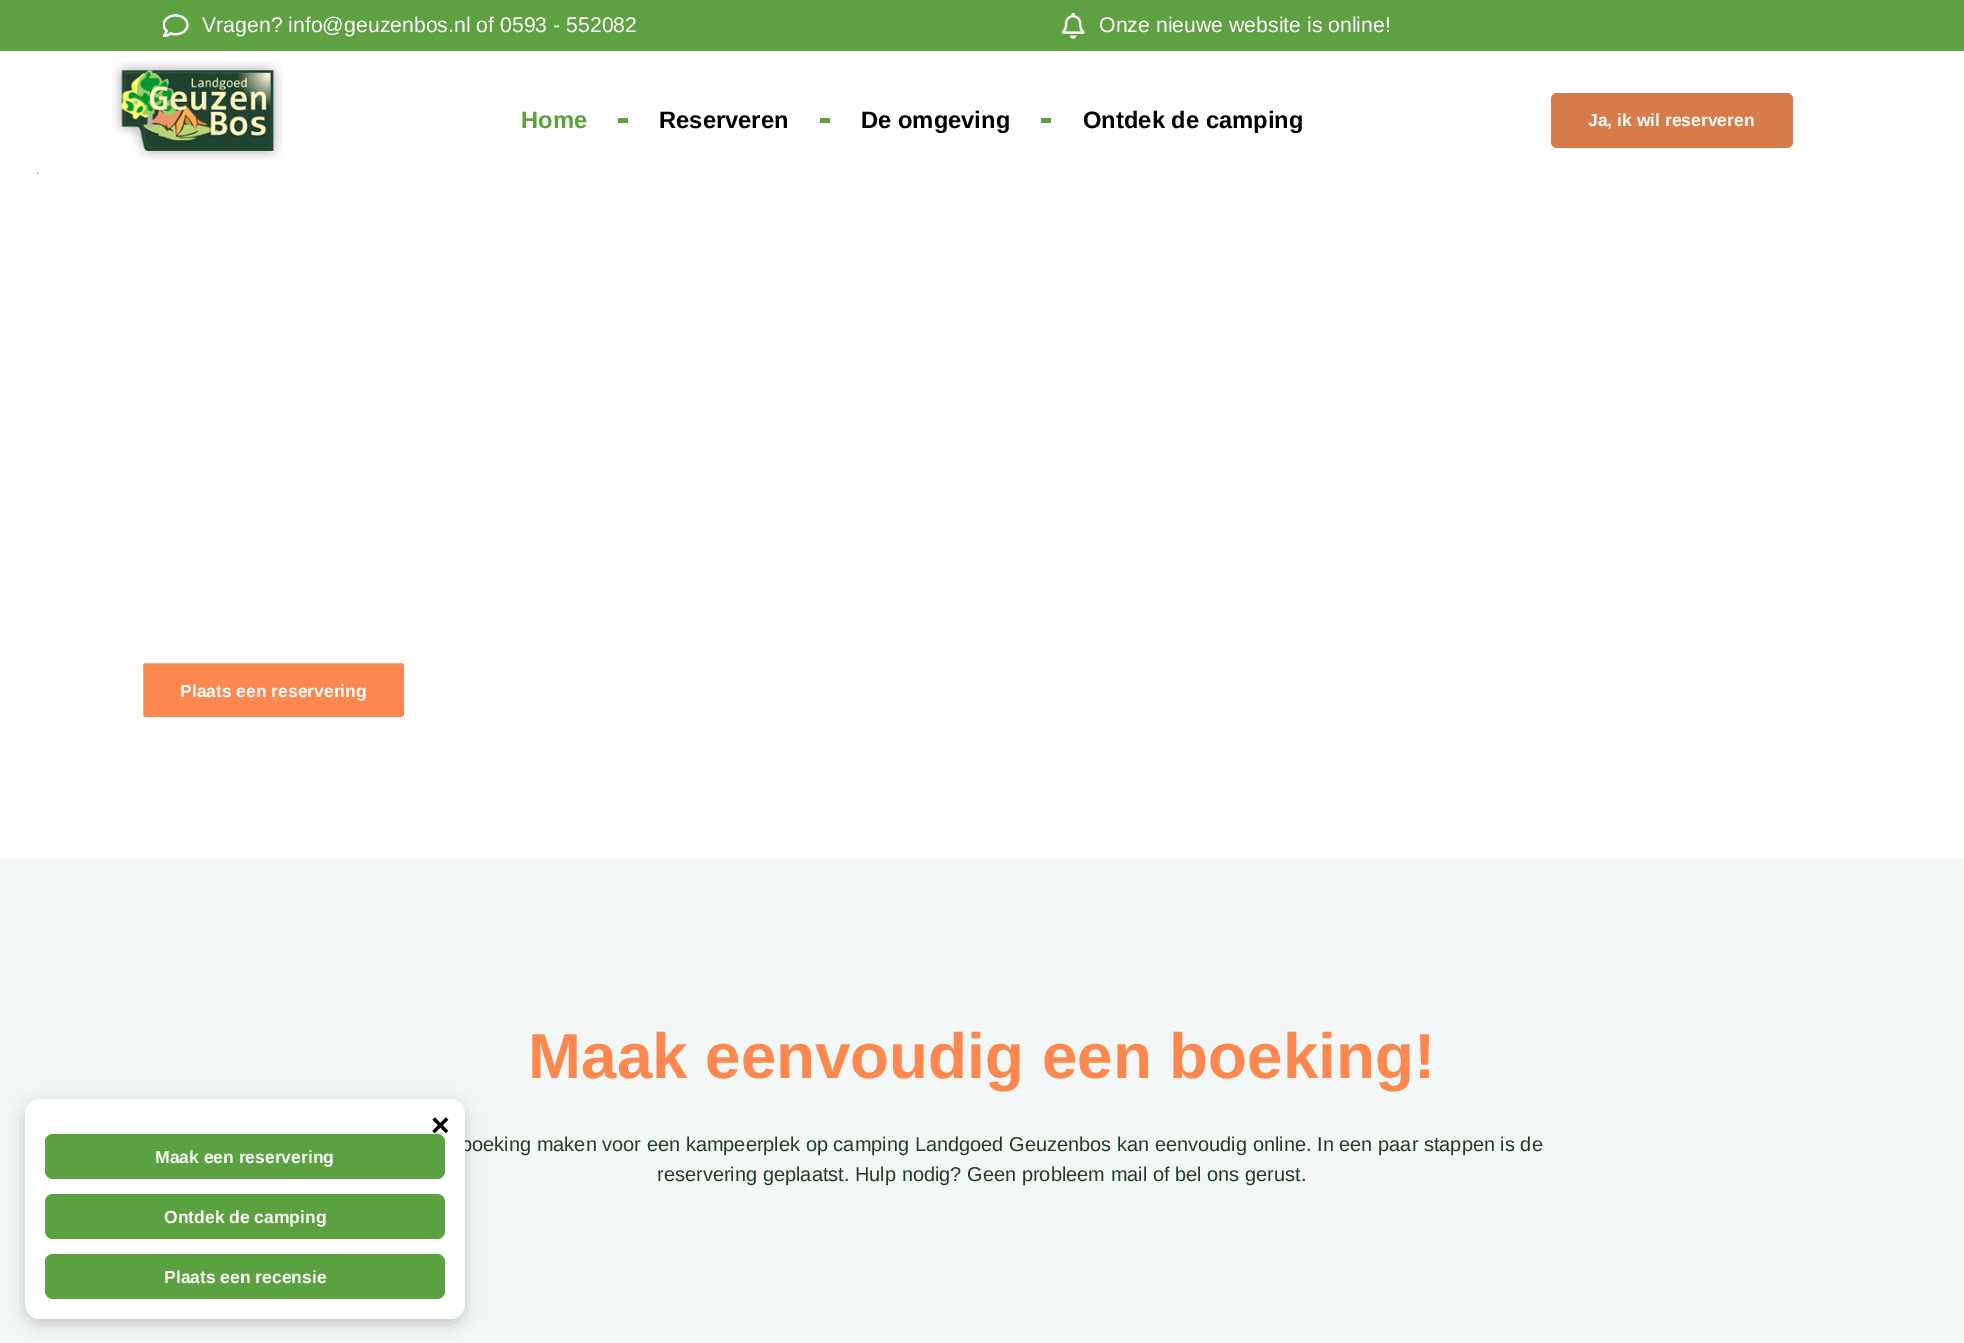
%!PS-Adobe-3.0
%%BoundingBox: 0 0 1964 1343
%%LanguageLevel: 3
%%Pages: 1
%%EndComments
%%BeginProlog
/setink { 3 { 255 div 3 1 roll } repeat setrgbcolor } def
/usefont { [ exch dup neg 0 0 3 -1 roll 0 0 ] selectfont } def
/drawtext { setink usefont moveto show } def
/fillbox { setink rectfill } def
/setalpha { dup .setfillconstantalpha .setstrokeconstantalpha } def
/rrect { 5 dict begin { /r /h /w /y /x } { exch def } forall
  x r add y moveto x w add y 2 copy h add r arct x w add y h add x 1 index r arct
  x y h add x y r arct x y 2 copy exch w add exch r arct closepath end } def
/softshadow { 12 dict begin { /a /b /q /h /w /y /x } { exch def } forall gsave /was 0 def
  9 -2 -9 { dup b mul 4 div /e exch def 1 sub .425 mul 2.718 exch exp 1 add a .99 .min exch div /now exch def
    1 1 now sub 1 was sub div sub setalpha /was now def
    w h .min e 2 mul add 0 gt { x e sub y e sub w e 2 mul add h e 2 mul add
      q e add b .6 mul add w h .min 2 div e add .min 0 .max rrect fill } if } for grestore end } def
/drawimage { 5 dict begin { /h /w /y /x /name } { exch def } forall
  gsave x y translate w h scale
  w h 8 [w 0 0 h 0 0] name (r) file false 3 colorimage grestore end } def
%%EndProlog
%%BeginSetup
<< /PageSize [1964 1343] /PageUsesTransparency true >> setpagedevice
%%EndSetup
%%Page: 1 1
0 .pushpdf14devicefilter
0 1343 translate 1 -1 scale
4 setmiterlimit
0 0 1964 1343 255 255 255 fillbox
0 0 1964 51 95 160 66 fillbox
(assets/img1.rgb) 163 14 26 24 drawimage
(Vragen? info@geuzenbos.nl of 0593 - 552082) 202 32 /LiberationSans-Regular 21.25 255 255 255 drawtext
(assets/img2.rgb) 1061 13 24 26 drawimage
(Onze nieuwe website is online!) 1099 32 /LiberationSans-Regular 21.25 255 255 255 drawtext
(assets/img3.rgb) 112 61 171 99 drawimage
(assets/img4.rgb) 37 172 2 2 drawimage
(Home) 521 128 /LiberationSans-Bold 23.75 92 161 62 drawtext
618 118 10 5 92 161 62 fillbox
(Reserveren) 659 128 /LiberationSans-Bold 23.75 0 0 0 drawtext
820 118 10 5 92 161 62 fillbox
(De omgeving) 861 128 /LiberationSans-Bold 23.75 0 0 0 drawtext
1041 118 10 5 92 161 62 fillbox
(Ontdek de camping) 1083 128 /LiberationSans-Bold 23.75 0 0 0 drawtext
213 124 72 setink
1551 93 242 55 6 rrect fill
(Ja, ik wil reserveren) 1588 126 /LiberationSans-Bold 17.5 255 255 255 drawtext
253 136 79 setink
141 661 265 58 4 rrect gsave fill grestore
255 255 255 setink
4 setlinewidth
stroke
(Plaats een reservering) 180 697 /LiberationSans-Bold 17.5 255 255 255 drawtext
0 859 1964 484 243 248 246 fillbox
(Maak eenvoudig een boeking!) 528 1078 /LiberationSans-Bold 63.75 253 136 79 drawtext
(boeking maken voor een kampeerplek op camping Landgoed Geuzenbos kan eenvoudig online. In een paar stappen is de) 461 1151 /LiberationSans-Regular 20 34 60 42 drawtext
(reservering geplaatst. Hulp nodig? Geen probleem mail of bel ons gerust.) 657 1181 /LiberationSans-Regular 20 34 60 42 drawtext
0 0 0 setink
25 1104 440 220 15 7.5 0.2 softshadow
255 255 255 setink
25 1099 440 220 15 rrect fill
(×) 431 1136 /LiberationSans-Bold 32 0 0 0 drawtext
91 161 64 setink
45 1134 400 45 8 rrect fill
(Maak een reservering) 155 1163 /LiberationSans-Bold 17.5 255 255 255 drawtext
91 161 64 setink
45 1194 400 45 8 rrect fill
(Ontdek de camping) 164 1223 /LiberationSans-Bold 17.5 255 255 255 drawtext
91 161 64 setink
45 1254 400 45 8 rrect fill
(Plaats een recensie) 164 1283 /LiberationSans-Bold 17.5 255 255 255 drawtext
.poppdf14devicefilter showpage
%%EOF
